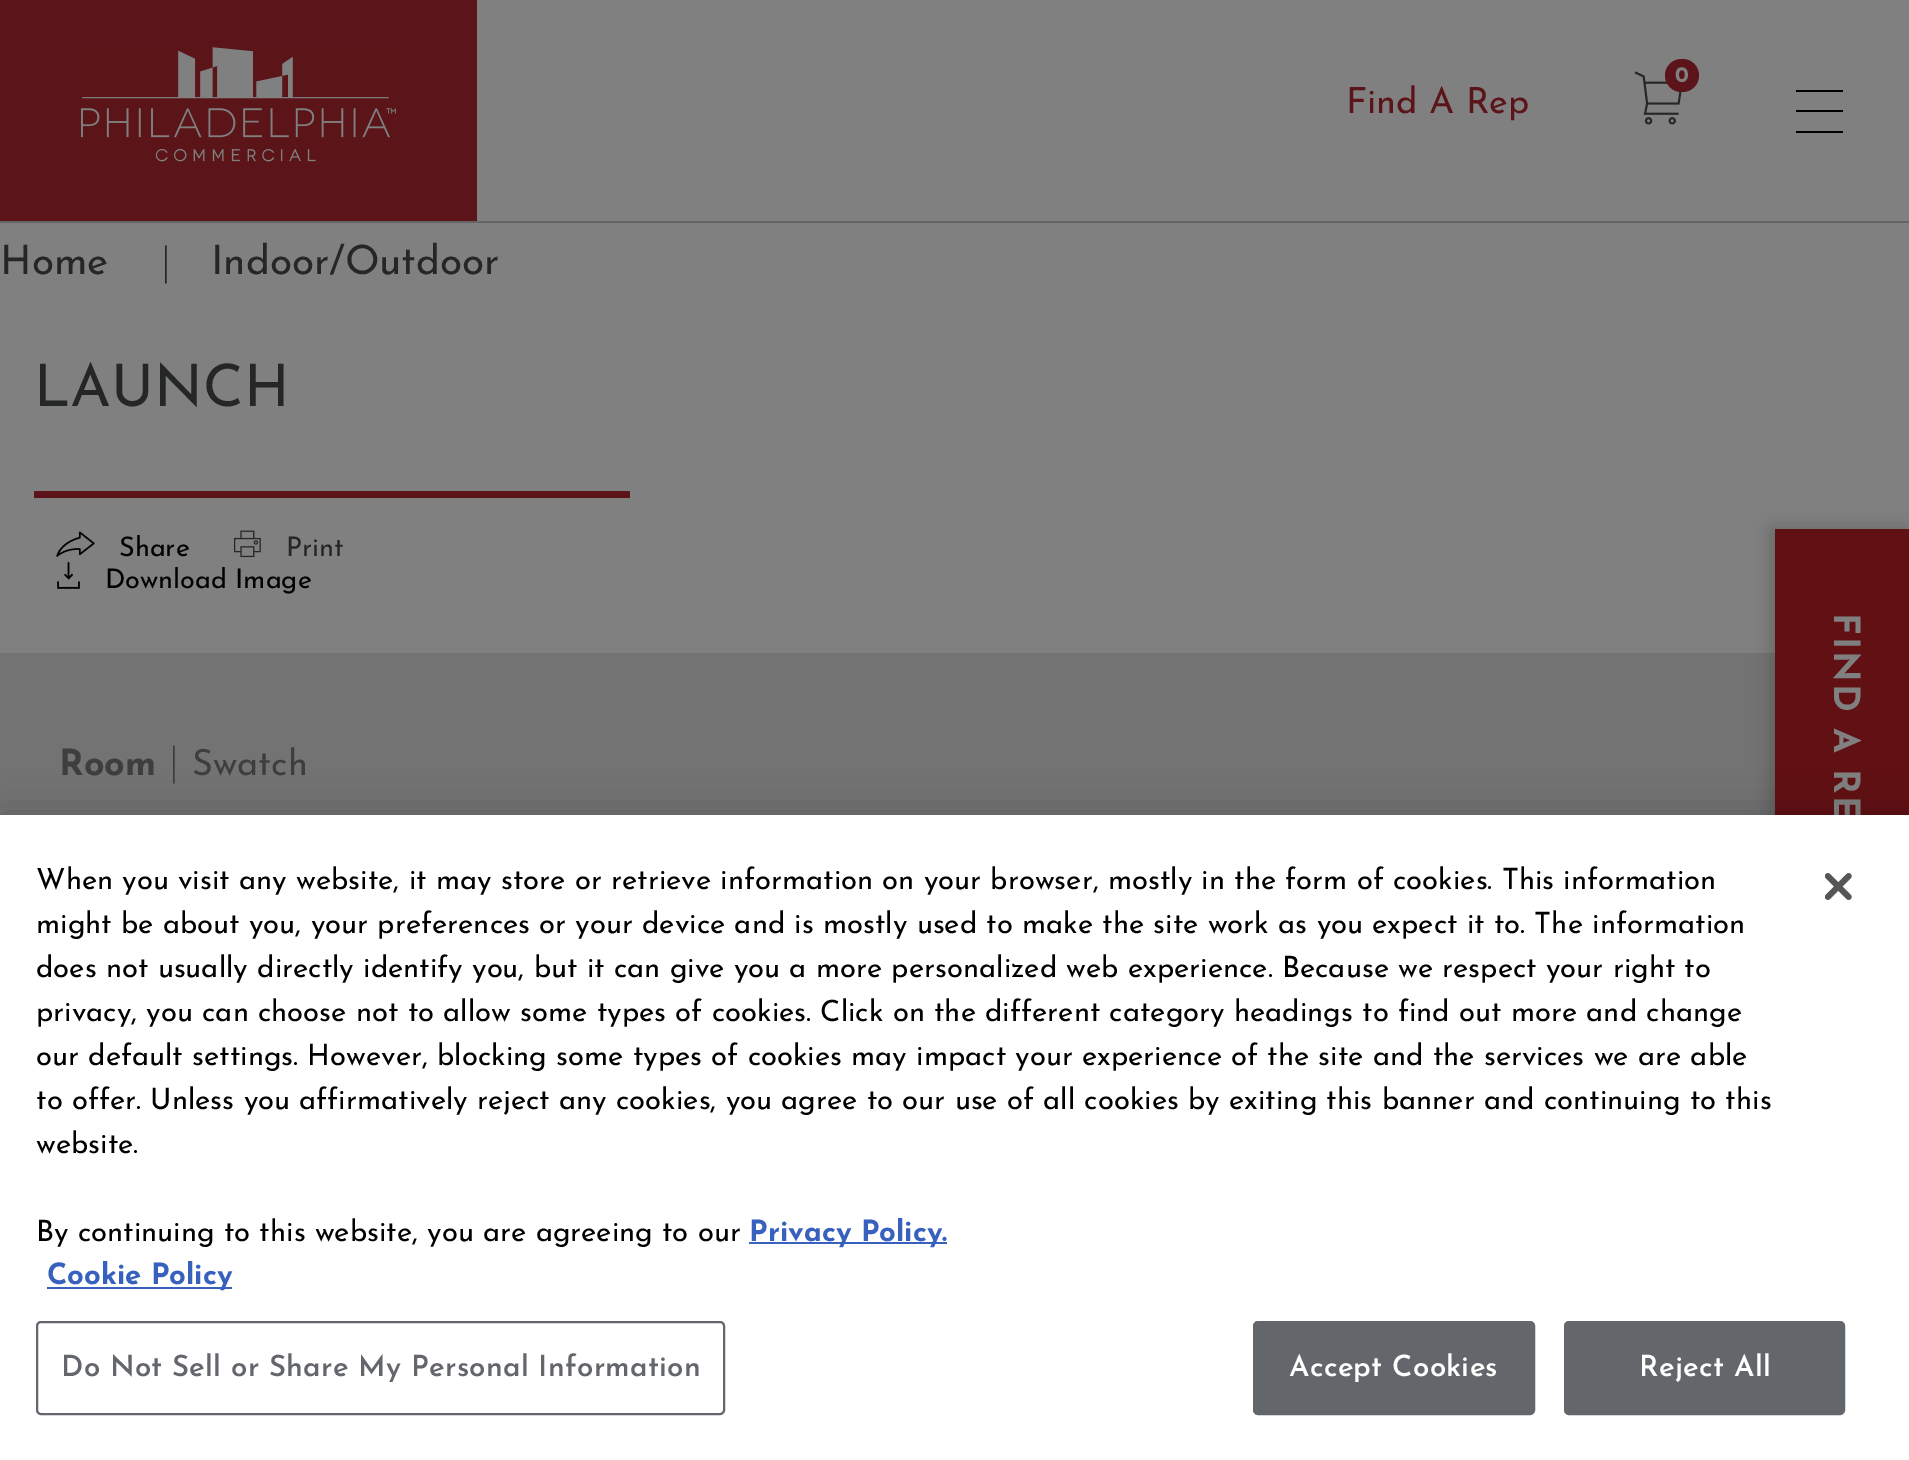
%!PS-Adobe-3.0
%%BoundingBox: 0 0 1909 1460
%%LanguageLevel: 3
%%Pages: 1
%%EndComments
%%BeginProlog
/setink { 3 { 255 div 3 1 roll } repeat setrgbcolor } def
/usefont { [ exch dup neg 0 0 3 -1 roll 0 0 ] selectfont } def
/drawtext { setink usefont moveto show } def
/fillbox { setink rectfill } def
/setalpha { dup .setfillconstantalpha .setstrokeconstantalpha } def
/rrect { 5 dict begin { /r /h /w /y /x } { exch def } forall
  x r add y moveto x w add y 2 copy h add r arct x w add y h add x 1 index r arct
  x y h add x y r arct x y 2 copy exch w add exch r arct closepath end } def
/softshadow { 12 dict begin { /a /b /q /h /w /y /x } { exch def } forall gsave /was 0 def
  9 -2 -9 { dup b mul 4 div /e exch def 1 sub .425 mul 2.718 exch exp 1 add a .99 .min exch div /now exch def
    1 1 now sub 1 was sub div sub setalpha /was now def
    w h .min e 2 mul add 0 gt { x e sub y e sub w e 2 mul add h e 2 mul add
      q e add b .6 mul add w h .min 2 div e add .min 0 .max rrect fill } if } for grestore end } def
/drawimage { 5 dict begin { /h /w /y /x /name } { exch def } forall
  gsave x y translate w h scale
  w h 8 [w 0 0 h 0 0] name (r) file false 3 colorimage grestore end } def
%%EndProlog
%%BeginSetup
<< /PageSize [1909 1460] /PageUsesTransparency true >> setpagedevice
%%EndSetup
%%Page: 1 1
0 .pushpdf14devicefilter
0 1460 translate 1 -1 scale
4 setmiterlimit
0 0 1909 1460 128 128 128 fillbox
0 221 1909 2 101 101 101 fillbox
0 0 477 221 91 20 25 fillbox
(assets/img1.rgb) 81 47 315 115 drawimage
(assets/img2.rgb) 1634 71 48 54 drawimage
1665 59 34 33 16.5 rrect fill
(0) 1675 82 /JosefinSans-Bold 22 128 128 128 drawtext
(Find A Rep) 1346 113 /JosefinSans-Regular 36 91 20 25 drawtext
1796 110 47 2 0 0 0 fillbox
1796 90 47 2 0 0 0 fillbox
1796 131 47 2 0 0 0 fillbox
(Home) 0 274 /JosefinSans-Regular 40.5 37 38 38 drawtext
(|) 161 274 /JosefinSans-Light 40.5 37 38 38 drawtext
(Indoor/Outdoor) 211 274 /JosefinSans-Regular 40.5 37 38 38 drawtext
(LAUNCH) 34 406 /JosefinSans-Regular 58.5 37 38 38 drawtext
34 491 596 7 91 20 25 fillbox
(assets/img3.rgb) 56 531 39 26 drawimage
(Share) 119 556 /JosefinSans-Regular 27 0 0 0 drawtext
(assets/img4.rgb) 234 530 27 28 drawimage
(Print) 286 556 /JosefinSans-Regular 27 37 38 38 drawtext
(assets/img5.rgb) 57 562 23 27 drawimage
(Download Image) 105 588 /JosefinSans-Regular 27 0 0 0 drawtext
0 653 1775 162 115 115 115 fillbox
(Room) 59 775 /JosefinSans-Bold 36 62 62 62 drawtext
(|) 169 774 /JosefinSans-Light 40.5 62 62 62 drawtext
(Swatch) 192 775 /JosefinSans-Regular 36 62 62 62 drawtext
0 0 0 setink
1771 529 135 405 0 9 0.2 softshadow
1775 529 134 286 97 16 19 fillbox
/JosefinSans-Bold 36 usefont
128 128 128 setink
gsave 1834 613 translate 90 rotate 0 0 moveto 2.25 0 (FIND A REP) ashow grestore
0 0 0 setink
0 815 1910 645 0 20 0.2 softshadow
0 815 1909 645 255 255 255 fillbox
(When you visit any website, it may store or retrieve information on your browser, mostly in the form of cookies. This information) 36 889 /JosefinSans-Regular 29.27 0 0 0 drawtext
(might be about you, your preferences or your device and is mostly used to make the site work as you expect it to. The information) 36 933 /JosefinSans-Regular 29.27 0 0 0 drawtext
(does not usually directly identify you, but it can give you a more personalized web experience. Because we respect your right to) 36 977 /JosefinSans-Regular 29.27 0 0 0 drawtext
(privacy, you can choose not to allow some types of cookies. Click on the different category headings to find out more and change) 36 1021 /JosefinSans-Regular 29.27 0 0 0 drawtext
(our default settings. However, blocking some types of cookies may impact your experience of the site and the services we are able) 36 1065 /JosefinSans-Regular 29.27 0 0 0 drawtext
(to offer. Unless you affirmatively reject any cookies, you agree to our use of all cookies by exiting this banner and continuing to this) 36 1109 /JosefinSans-Regular 29.27 0 0 0 drawtext
(website.) 36 1153 /JosefinSans-Regular 29.27 0 0 0 drawtext
(By continuing to this website, you are agreeing to our) 36 1241 /JosefinSans-Regular 29.27 0 0 0 drawtext
749 1242 198 2 56 96 190 fillbox
(Privacy Policy.) 749 1241 /JosefinSans-Bold 29.27 56 96 190 drawtext
47 1287 185 2 56 96 190 fillbox
(Cookie Policy) 47 1284 /JosefinSans-Bold 29.27 56 96 190 drawtext
99 102 106 setink
2 setlinewidth
37 1322 687 92 4 rrect stroke
/JosefinSans-SemiBold 29.27 usefont
61 1376 moveto 0.3 0 (Do Not Sell or Share My Personal Information) ashow
1254 1322 280 92 4 rrect gsave fill grestore
stroke
255 255 255 setink
1289 1376 moveto 0.3 0 (Accept Cookies) ashow
99 102 106 setink
1565 1322 279 92 4 rrect gsave fill grestore
stroke
255 255 255 setink
1639 1376 moveto 0.3 0 (Reject All) ashow
(assets/img6.rgb) 1825 873 27 27 drawimage
.poppdf14devicefilter showpage
%%EOF
